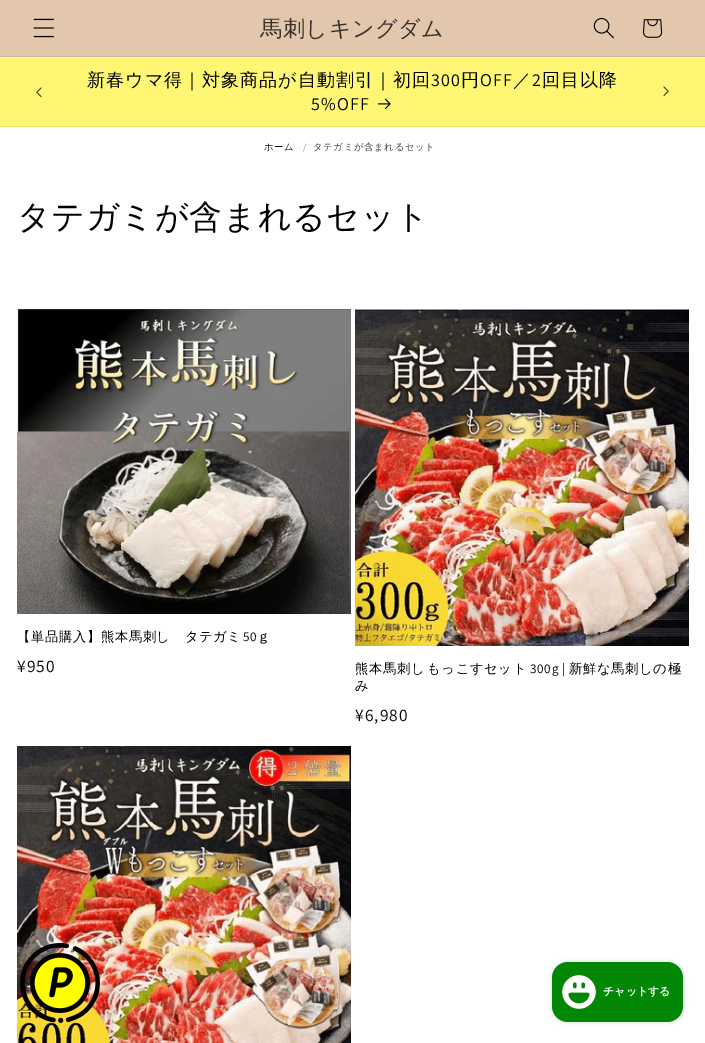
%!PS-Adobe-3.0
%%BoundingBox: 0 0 705 1043
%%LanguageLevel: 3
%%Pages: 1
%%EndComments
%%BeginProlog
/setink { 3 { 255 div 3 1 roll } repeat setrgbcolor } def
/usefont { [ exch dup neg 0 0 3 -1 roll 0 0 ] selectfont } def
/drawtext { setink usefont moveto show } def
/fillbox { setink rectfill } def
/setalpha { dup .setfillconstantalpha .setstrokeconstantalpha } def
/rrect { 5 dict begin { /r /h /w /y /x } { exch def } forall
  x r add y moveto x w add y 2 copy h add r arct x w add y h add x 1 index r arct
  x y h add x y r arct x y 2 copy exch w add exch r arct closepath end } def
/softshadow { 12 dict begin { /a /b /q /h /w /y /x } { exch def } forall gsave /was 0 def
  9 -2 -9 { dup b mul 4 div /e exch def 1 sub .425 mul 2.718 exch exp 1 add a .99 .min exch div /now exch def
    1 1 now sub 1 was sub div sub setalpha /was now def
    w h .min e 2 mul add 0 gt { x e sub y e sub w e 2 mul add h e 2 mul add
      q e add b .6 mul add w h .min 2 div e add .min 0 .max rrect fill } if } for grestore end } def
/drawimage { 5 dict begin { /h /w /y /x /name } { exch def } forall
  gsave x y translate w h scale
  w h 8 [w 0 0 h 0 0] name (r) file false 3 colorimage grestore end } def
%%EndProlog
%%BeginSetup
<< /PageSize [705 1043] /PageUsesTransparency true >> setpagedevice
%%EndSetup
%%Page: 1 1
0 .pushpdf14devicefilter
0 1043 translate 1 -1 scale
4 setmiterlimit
0 0 705 1043 255 255 255 fillbox
0 0 705 56 226 199 173 fillbox
0 56 705 1 208 183 159 fillbox
(assets/img1.rgb) 33 18 21 20 drawimage
/WenQuanYiZenHei-Medium 22 usefont
57 50 43 setink
260 36 moveto 0.7 0 (馬刺しキングダム) ashow
(assets/img2.rgb) 593 17 21 22 drawimage
(assets/img3.rgb) 643 19 20 19 drawimage
0 57 705 69 255 247 115 fillbox
0 126 705 1 235 227 106 fillbox
(assets/img4.rgb) 36 87 6 11 drawimage
/WenQuanYiZenHei-Medium 18 usefont
0 0 0 setink
87 86 moveto 1.1 0 (新春ウマ得｜対象商品が自動割引｜初回) ashow
/Assistant-Regular 18 usefont
431 86 moveto 1.1 0 (300) ashow
/WenQuanYiZenHei-Medium 18 usefont
461 86 moveto 1.1 0 (円) ashow
/Assistant-Regular 18 usefont
480 86 moveto 1.1 0 (OFF) ashow
/WenQuanYiZenHei-Medium 18 usefont
513 86 moveto 1.1 0 (／) ashow
/Assistant-Regular 18 usefont
532 86 moveto 1.1 0 (2) ashow
/WenQuanYiZenHei-Medium 18 usefont
542 86 moveto 1.1 0 (回目以降) ashow
/Assistant-Regular 18 usefont
311 110 moveto 1.1 0 (5%OFF) ashow
(assets/img5.rgb) 378 98 13 12 drawimage
(assets/img6.rgb) 663 86 6 11 drawimage
/WenQuanYiZenHei-Medium 9.3 usefont
18 18 18 setink
264 150 moveto 0.7 0 (ホーム) ashow
/Assistant-Regular 9.3 usefont
140 140 140 setink
303 150 moveto 0.7 0 (/) ashow
/WenQuanYiZenHei-Medium 9.3 usefont
64 64 64 setink
313 150 moveto 0.7 0 (タテガミが含まれるセット) ashow
/WenQuanYiZenHei-Medium 33 usefont
0 0 0 setink
17 228 moveto 0.7 0 (タテガミが含まれるセット) ashow
(assets/img7.rgb) 17 309 334 305 drawimage
/WenQuanYiZenHei-Medium 13.25 usefont
17 641 moveto 0.7 0 (【単品購入】熊本馬刺し　タテガミ) ashow
/Assistant-Regular 13.25 usefont
243 641 moveto 0.7 0 (50) ashow
/WenQuanYiZenHei-Medium 13.25 usefont
257 641 moveto 0.7 0 (ｇ) ashow
/Assistant-Regular 17.5 usefont
17 672 moveto 1.1 0 (¥950) ashow
(assets/img8.rgb) 355 309 334 337 drawimage
/WenQuanYiZenHei-Medium 13.25 usefont
355 673 moveto 0.7 0 (熊本馬刺し) ashow
427 673 moveto 0.7 0 (もっこすセット) ashow
/Assistant-Regular 13.25 usefont
530 673 moveto 0.7 0 (300g |) ashow
/WenQuanYiZenHei-Medium 13.25 usefont
569 673 moveto 0.7 0 (新鮮な馬刺しの極) ashow
355 690 moveto 0.7 0 (み) ashow
/Assistant-Regular 17.5 usefont
355 721 moveto 1.1 0 (¥6,980) ashow
(assets/img9.rgb) 17 746 334 297 drawimage
(assets/img10.rgb) 20 943 80 80 drawimage
552 962 131 60 16 2.5 0.15 softshadow
2 135 6 setink
552 962 131 60 16 rrect fill
(assets/img11.rgb) 562 975 34 34 drawimage
(チャットする) 603 995 /WenQuanYiZenHei-Bold 11 255 255 255 drawtext
.poppdf14devicefilter showpage
%%EOF
